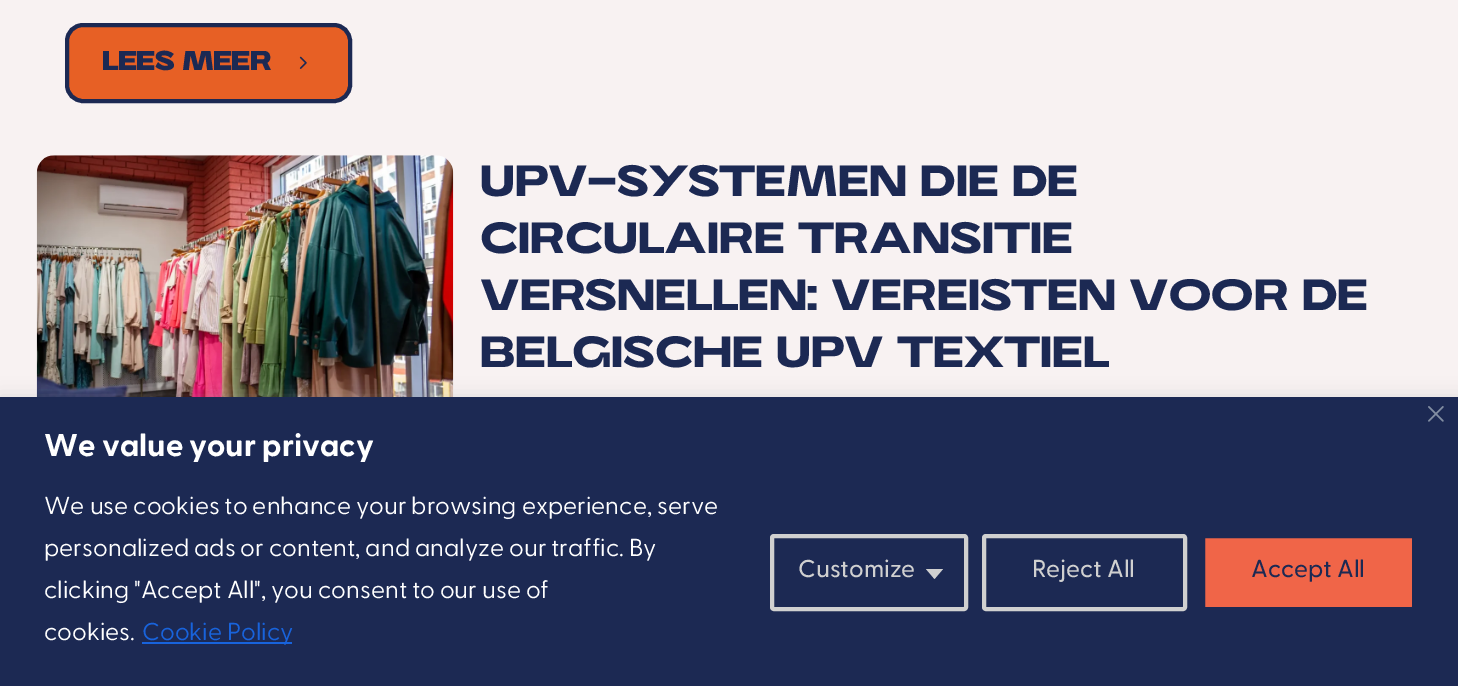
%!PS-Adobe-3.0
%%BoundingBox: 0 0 1458 686
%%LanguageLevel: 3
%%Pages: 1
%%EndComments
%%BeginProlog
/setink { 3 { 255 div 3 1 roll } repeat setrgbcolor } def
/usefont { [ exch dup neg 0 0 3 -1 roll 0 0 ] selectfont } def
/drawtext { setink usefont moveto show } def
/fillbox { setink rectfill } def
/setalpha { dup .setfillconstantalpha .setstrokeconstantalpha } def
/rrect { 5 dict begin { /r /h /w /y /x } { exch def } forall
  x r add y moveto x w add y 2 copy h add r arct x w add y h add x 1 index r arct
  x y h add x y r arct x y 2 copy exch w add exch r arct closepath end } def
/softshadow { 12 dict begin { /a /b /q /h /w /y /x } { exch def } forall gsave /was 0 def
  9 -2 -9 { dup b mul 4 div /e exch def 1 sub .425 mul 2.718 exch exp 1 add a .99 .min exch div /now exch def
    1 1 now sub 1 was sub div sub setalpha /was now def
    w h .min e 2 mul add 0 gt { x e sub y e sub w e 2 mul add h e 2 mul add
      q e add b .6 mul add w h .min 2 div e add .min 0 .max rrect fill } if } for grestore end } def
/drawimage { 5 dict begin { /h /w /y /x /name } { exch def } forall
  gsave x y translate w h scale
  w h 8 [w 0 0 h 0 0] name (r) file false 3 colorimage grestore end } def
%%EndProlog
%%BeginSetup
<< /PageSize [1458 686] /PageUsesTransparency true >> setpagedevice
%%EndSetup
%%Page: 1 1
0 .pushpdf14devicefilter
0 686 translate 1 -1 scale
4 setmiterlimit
0 0 1458 686 248 242 242 fillbox
231 96 37 setink
67 25 283 76 16 rrect gsave fill grestore
28 41 83 setink
4 setlinewidth
stroke
(Lees Meer) 102 70 /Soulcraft-Bold 26.25 28 41 83 drawtext
(assets/img1.rgb) 299 56 8 13 drawimage
(assets/img2.rgb) 36 155 418 242 drawimage
(UPV-systemen die de) 480 196 /Soulcraft-Regular 43.75 28 41 83 drawtext
(circulaire transitie) 480 253 /Soulcraft-Regular 43.75 28 41 83 drawtext
(versnellen: Vereisten voor de) 480 310 /Soulcraft-Regular 43.75 28 41 83 drawtext
(Belgische UPV Textiel) 480 367 /Soulcraft-Regular 43.75 28 41 83 drawtext
172 171 171 setink
0 396 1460 288 0 9 0.3 softshadow
0 397 1458 289 28 41 83 fillbox
(assets/img3.rgb) 1428 406 16 16 drawimage
(We value your privacy) 44 456 /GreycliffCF-Bold 31.5 255 255 255 drawtext
(We use cookies to enhance your browsing experience, serve) 44 514 /GreycliffCF-Regular 24.5 255 255 255 drawtext
(personalized ads or content, and analyze our traffic. By) 44 556 /GreycliffCF-Regular 24.5 255 255 255 drawtext
(clicking "Accept All", you consent to our use of) 44 598 /GreycliffCF-Regular 24.5 255 255 255 drawtext
(cookies.) 44 640 /GreycliffCF-Regular 24.5 255 255 255 drawtext
142 642 150 2 24 99 220 fillbox
(Cookie Policy) 142 640 /GreycliffCF-Regular 24.5 24 99 220 drawtext
208 208 208 setink
772 536 194 73 2 rrect stroke
(Customize) 798 577 /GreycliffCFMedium-Medium 24.5 208 208 208 drawtext
926 569 moveto 943 569 lineto 934.5 579 lineto closepath fill
984 536 201 73 2 rrect stroke
(Reject All) 1032 577 /GreycliffCFMedium-Medium 24.5 208 208 208 drawtext
240 101 72 setink
1203 536 211 73 2 rrect gsave fill grestore
28 41 83 setink
stroke
(Accept All) 1251 577 /GreycliffCFMedium-Medium 24.5 28 41 83 drawtext
.poppdf14devicefilter showpage
%%EOF
